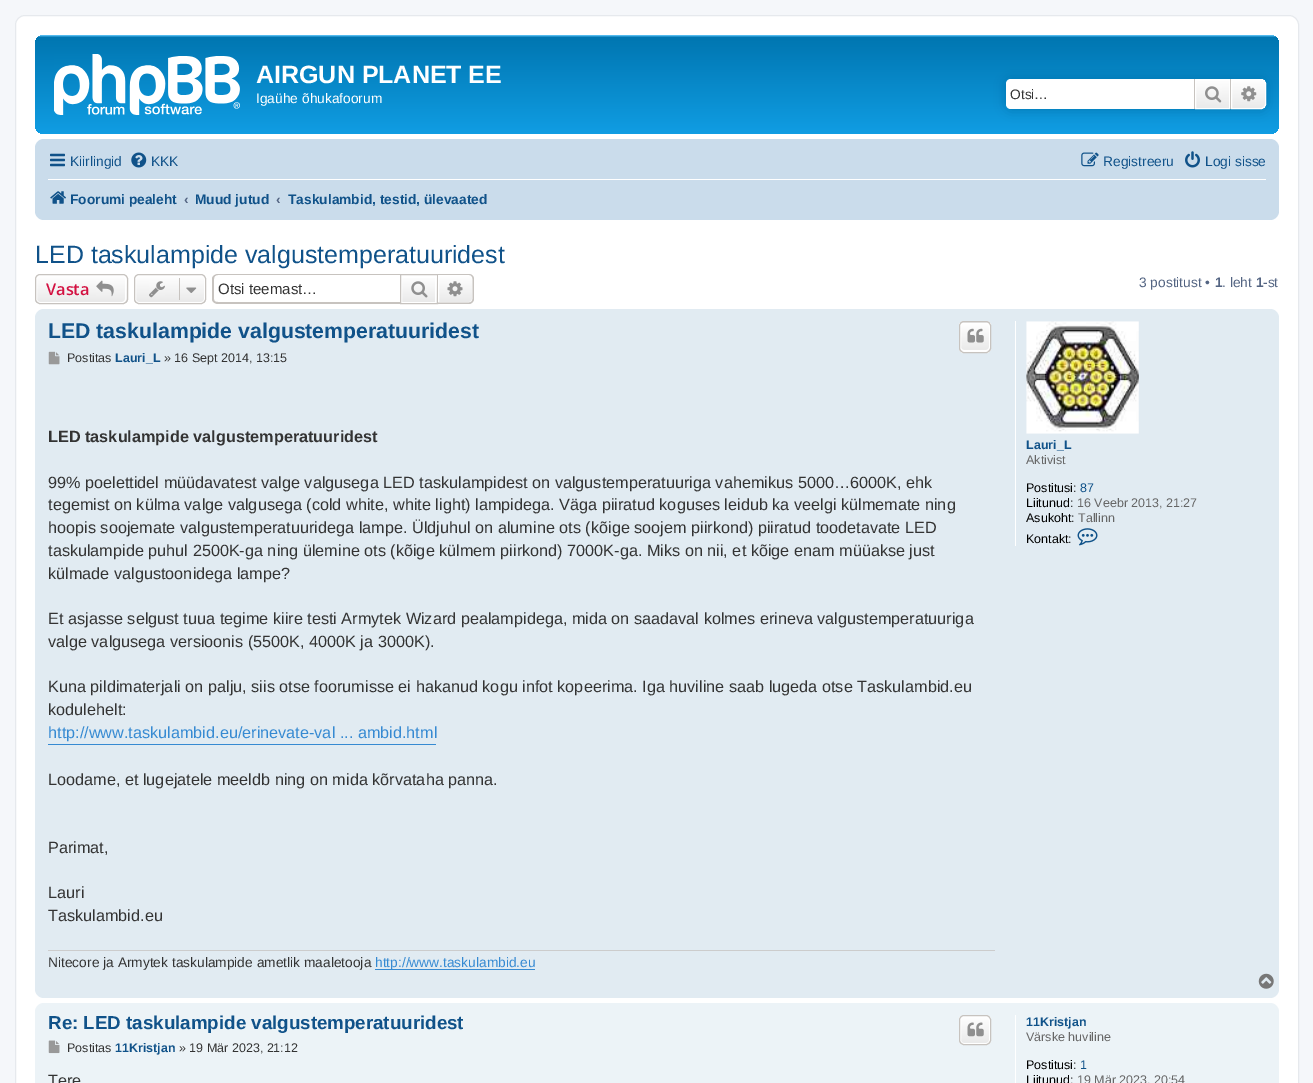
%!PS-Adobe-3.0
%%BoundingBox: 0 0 1313 1083
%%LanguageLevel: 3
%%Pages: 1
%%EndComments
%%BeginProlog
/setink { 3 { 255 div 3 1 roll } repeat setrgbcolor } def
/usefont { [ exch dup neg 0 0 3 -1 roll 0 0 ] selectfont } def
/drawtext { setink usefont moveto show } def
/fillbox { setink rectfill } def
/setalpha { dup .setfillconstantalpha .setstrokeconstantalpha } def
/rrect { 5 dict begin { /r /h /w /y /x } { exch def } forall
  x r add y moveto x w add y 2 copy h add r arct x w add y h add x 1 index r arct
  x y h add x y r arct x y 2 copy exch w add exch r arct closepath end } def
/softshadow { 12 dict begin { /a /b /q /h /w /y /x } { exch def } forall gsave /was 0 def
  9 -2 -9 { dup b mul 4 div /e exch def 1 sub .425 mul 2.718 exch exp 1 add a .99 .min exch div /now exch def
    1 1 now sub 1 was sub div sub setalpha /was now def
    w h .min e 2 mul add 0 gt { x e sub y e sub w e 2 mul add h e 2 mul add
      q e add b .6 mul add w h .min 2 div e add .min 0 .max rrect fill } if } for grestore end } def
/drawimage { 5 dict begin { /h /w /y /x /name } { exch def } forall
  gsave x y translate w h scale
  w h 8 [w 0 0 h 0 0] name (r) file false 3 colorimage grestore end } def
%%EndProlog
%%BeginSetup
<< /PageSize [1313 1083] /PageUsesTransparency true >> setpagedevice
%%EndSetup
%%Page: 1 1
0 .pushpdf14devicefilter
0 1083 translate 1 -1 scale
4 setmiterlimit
0 0 1313 1083 245 247 250 fillbox
255 255 255 setink
15.5 15.5 1283 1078 9.5 rrect gsave fill grestore
230 233 237 setink
stroke
gsave 35 35 1244 99 9 rrect clip newpath
<< /ShadingType 2 /ColorSpace /DeviceRGB /Coords [657 35 657 150] /Extend [true true] /Function << /FunctionType 3 /Domain [0 1] /Functions [<< /FunctionType 2 /Domain [0 1] /C0 [0.416 0.808 1] /C1 [0 0.463 0.694] /N 1 >> << /FunctionType 2 /Domain [0 1] /C0 [0 0.463 0.694] /C1 [0.071 0.639 0.922] /N 1 >>] /Bounds [0.02] /Encode [0 1 0 1] >> >> shfill grestore
(assets/img1.rgb) 54 54 186 61 drawimage
(AIRGUN PLANET EE) 256 83 /LiberationSans-Bold 25 255 255 255 drawtext
(Igaühe õhukafoorum) 256 103 /LiberationSans-Regular 13.75 255 255 255 drawtext
0 117 176 setink
1006 79 260 30 5 6 1 softshadow
255 255 255 setink
1011 79 moveto 1194 79 lineto 1194 109 lineto 1011 109 lineto 1008 109 1006 107 1006 104 curveto 1006 84 lineto 1006 81 1008 79 1011 79 curveto closepath fill
(Otsi…) 1010 99 /LiberationSans-Regular 13.75 51 51 51 drawtext
gsave 1196 80 moveto 1229 80 lineto 1229 108 lineto 1196 108 lineto closepath clip newpath
<< /ShadingType 2 /ColorSpace /DeviceRGB /Coords [1213 79 1213 109] /Extend [true true] /Function << /FunctionType 2 /Domain [0 1] /C0 [1 1 1] /C1 [0.914 0.914 0.914] /N 1 >> >> shfill grestore
255 255 255 setink
1195.5 79.5 34 29 rectstroke
1230 79 1 30 199 195 191 fillbox
1194 79 1 30 199 195 191 fillbox
(assets/img2.rgb) 1205 86 17 17 drawimage
gsave 1231.5 79.5 moveto 1261 79.5 lineto 1263.5 79.5 1265.5 81.5 1265.5 84 curveto 1265.5 104 lineto 1265.5 106.5 1263.5 108.5 1261 108.5 curveto 1231.5 108.5 lineto closepath clip newpath
<< /ShadingType 2 /ColorSpace /DeviceRGB /Coords [1249 79 1249 109] /Extend [true true] /Function << /FunctionType 2 /Domain [0 1] /C0 [1 1 1] /C1 [0.914 0.914 0.914] /N 1 >> >> shfill grestore
255 255 255 setink
1231.5 79.5 moveto 1261 79.5 lineto 1263.5 79.5 1265.5 81.5 1265.5 84 curveto 1265.5 104 lineto 1265.5 106.5 1263.5 108.5 1261 108.5 curveto 1231.5 108.5 lineto closepath stroke
(assets/img3.rgb) 1241 86 16 16 drawimage
202 220 235 setink
35 139 1244 81 9 rrect fill
(assets/img4.rgb) 50 153 15 14 drawimage
(Kiirlingid) 70 166 /LiberationSans-Regular 13.75 16 82 137 drawtext
(assets/img5.rgb) 131 152 16 16 drawimage
(KKK) 151 166 /LiberationSans-Regular 13.75 16 82 137 drawtext
(assets/img6.rgb) 1081 152 18 15 drawimage
(Registreeru) 1103 166 /LiberationSans-Regular 13.75 16 82 137 drawtext
(assets/img7.rgb) 1185 151 15 17 drawimage
(Logi sisse) 1205 166 /LiberationSans-Regular 13.75 16 82 137 drawtext
48 179 1218 1 255 255 255 fillbox
(assets/img8.rgb) 50 191 16 13 drawimage
(Foorumi pealeht) 70 204 /LiberationSans-Bold 13.75 16 82 137 drawtext
(‹) 184 204 /LiberationSans-Bold 13.75 83 100 130 drawtext
(Muud jutud) 195 204 /LiberationSans-Bold 13.75 16 82 137 drawtext
(‹) 276 204 /LiberationSans-Bold 13.75 83 100 130 drawtext
(Taskulambid, testid, ülevaated) 288 204 /LiberationSans-Bold 13.75 16 82 137 drawtext
(LED taskulampide valgustemperatuuridest) 35 263 /LiberationSans-Regular 25 16 82 137 drawtext
gsave
35 274 93 30 5 rrect clip newpath
gsave 35 275 moveto 128 275 lineto 128 303 lineto 35 303 lineto closepath clip newpath
<< /ShadingType 2 /ColorSpace /DeviceRGB /Coords [81 275 81 303] /Extend [true true] /Function << /FunctionType 2 /Domain [0 1] /C0 [1 1 1] /C1 [0.914 0.914 0.914] /N 1 >> >> shfill grestore
grestore
255 255 255 setink
36.5 275.5 89 27 3.5 rrect stroke
199 195 191 setink
35.5 274.5 92 29 4.5 rrect stroke
(Vasta) 46 295 /OpenSans-SemiBold 16.25 211 17 65 drawtext
(assets/img9.rgb) 96 280 18 17 drawimage
gsave
134 274 72 30 5 rrect clip newpath
gsave 134 275 moveto 206 275 lineto 206 303 lineto 134 303 lineto closepath clip newpath
<< /ShadingType 2 /ColorSpace /DeviceRGB /Coords [170 275 170 303] /Extend [true true] /Function << /FunctionType 2 /Domain [0 1] /C0 [1 1 1] /C1 [0.914 0.914 0.914] /N 1 >> >> shfill grestore
grestore
255 255 255 setink
135.5 275.5 69 27 3.5 rrect stroke
199 195 191 setink
134.5 274.5 71 29 4.5 rrect stroke
(assets/img10.rgb) 149 281 16 17 drawimage
179 278 1 22 199 195 191 fillbox
(assets/img11.rgb) 186 287 11 6 drawimage
218 274 moveto 400 274 lineto 400 304 lineto 218 304 lineto 215 304 212 302 212 299 curveto 212 279 lineto 212 276 215 274 218 274 curveto closepath 218 275 moveto 400 275 lineto 400 302 lineto 218 302 lineto 215 302 214 301 214 299 curveto 214 279 lineto 214 277 215 275 218 275 curveto closepath eofill
(Otsi teemast…) 218 294 /LiberationSans-Regular 15 51 51 51 drawtext
gsave 402 278 moveto 437 278 lineto 437 303 lineto 402 303 lineto closepath clip newpath
<< /ShadingType 2 /ColorSpace /DeviceRGB /Coords [419 275 419 303] /Extend [true true] /Function << /FunctionType 2 /Domain [0 1] /C0 [1 1 1] /C1 [0.914 0.914 0.914] /N 1 >> >> shfill grestore
255 255 255 setink
401.5 275.5 34 27 rectstroke
199 195 191 setink
400.5 274.5 37 29 rectstroke
(assets/img12.rgb) 411 281 17 17 drawimage
gsave 438.5 275.5 moveto 469 275.5 lineto 471 275.5 472.5 277 472.5 279 curveto 472.5 299 lineto 472.5 301 471 302.5 469 302.5 curveto 438.5 302.5 lineto closepath clip newpath
<< /ShadingType 2 /ColorSpace /DeviceRGB /Coords [455 275 455 303] /Extend [true true] /Function << /FunctionType 2 /Domain [0 1] /C0 [1 1 1] /C1 [0.914 0.914 0.914] /N 1 >> >> shfill grestore
255 255 255 setink
438.5 275.5 moveto 469 275.5 lineto 471 275.5 472.5 277 472.5 279 curveto 472.5 299 lineto 472.5 301 471 302.5 469 302.5 curveto 438.5 302.5 lineto closepath stroke
199 195 191 setink
437.5 274 moveto 469 274 lineto 471.5 274 474 276 474 279 curveto 474 299 lineto 474 301.5 471.5 304 469 304 curveto 437.5 304 lineto closepath 437.5 275 moveto 469 275 lineto 471 275 472.5 276.5 472.5 279 curveto 472.5 299 lineto 472.5 301 471 302.5 469 302.5 curveto 437.5 302.5 lineto closepath eofill
(assets/img13.rgb) 447 281 16 16 drawimage
(3 postitust •) 1139 287 /LiberationSans-Regular 13.75 83 100 130 drawtext
(1) 1215 287 /LiberationSans-Bold 13.75 83 100 130 drawtext
(. leht) 1222 287 /LiberationSans-Regular 13.75 83 100 130 drawtext
(1) 1256 287 /LiberationSans-Bold 13.75 83 100 130 drawtext
(-st) 1263 287 /LiberationSans-Regular 13.75 83 100 130 drawtext
225 235 242 setink
35 309 1244 689 9 rrect fill
(LED taskulampide valgustemperatuuridest) 48 338 /LiberationSans-Bold 21.25 16 82 137 drawtext
gsave
959 321 32 32 5 rrect clip newpath
gsave 959 321 moveto 991 321 lineto 991 323 lineto 959 323 lineto closepath clip newpath
<< /ShadingType 2 /ColorSpace /DeviceRGB /Coords [975 294 975 323] /Extend [true true] /Function << /FunctionType 2 /Domain [0 1] /C0 [1 1 1] /C1 [0.914 0.914 0.914] /N 1 >> >> shfill grestore
gsave 959 323 moveto 991 323 lineto 991 351 lineto 959 351 lineto closepath clip newpath
<< /ShadingType 2 /ColorSpace /DeviceRGB /Coords [975 323 975 351] /Extend [true true] /Function << /FunctionType 2 /Domain [0 1] /C0 [1 1 1] /C1 [0.914 0.914 0.914] /N 1 >> >> shfill grestore
gsave 959 351 moveto 991 351 lineto 991 353 lineto 959 353 lineto closepath clip newpath
<< /ShadingType 2 /ColorSpace /DeviceRGB /Coords [975 351 975 380] /Extend [true true] /Function << /FunctionType 2 /Domain [0 1] /C0 [1 1 1] /C1 [0.914 0.914 0.914] /N 1 >> >> shfill grestore
grestore
255 255 255 setink
960.5 323.5 29 27 3.5 rrect stroke
199 195 191 setink
959.5 321.5 31 31 4.5 rrect stroke
(assets/img14.rgb) 967 328 17 15 drawimage
(assets/img15.rgb) 48 351 12 14 drawimage
(Postitas) 67 362 /LiberationSans-Regular 12.5 51 51 51 drawtext
(Lauri_L) 115 362 /LiberationSans-Bold 12.5 16 82 137 drawtext
(» 16 Sept 2014, 13:15) 164 362 /LiberationSans-Regular 12.5 51 51 51 drawtext
(LED taskulampide valgustemperatuuridest) 48 442 /LiberationSans-Bold 16.25 51 51 51 drawtext
(99% poelettidel müüdavatest valge valgusega LED taskulampidest on valgustemperatuuriga vahemikus 5000…6000K, ehk) 48 488 /LiberationSans-Regular 16.25 51 51 51 drawtext
(tegemist on külma valge valgusega \(cold white, white light\) lampidega. Väga piiratud koguses leidub ka veelgi külmemate ning) 48 510 /LiberationSans-Regular 16.25 51 51 51 drawtext
(hoopis soojemate valgustemperatuuridega lampe. Üldjuhul on alumine ots \(kõige soojem piirkond\) piiratud toodetavate LED) 48 533 /LiberationSans-Regular 16.25 51 51 51 drawtext
(taskulampide puhul 2500K-ga ning ülemine ots \(kõige külmem piirkond\) 7000K-ga. Miks on nii, et kõige enam müüakse just) 48 556 /LiberationSans-Regular 16.25 51 51 51 drawtext
(külmade valgustoonidega lampe?) 48 579 /LiberationSans-Regular 16.25 51 51 51 drawtext
(Et asjasse selgust tuua tegime kiire testi Armytek Wizard pealampidega, mida on saadaval kolmes erineva valgustemperatuuriga) 48 624 /LiberationSans-Regular 16.25 51 51 51 drawtext
(valge valgusega versioonis \(5500K, 4000K ja 3000K\).) 48 647 /LiberationSans-Regular 16.25 51 51 51 drawtext
(Kuna pildimaterjali on palju, siis otse foorumisse ei hakanud kogu infot kopeerima. Iga huviline saab lugeda otse Taskulambid.eu) 48 692 /LiberationSans-Regular 16.25 51 51 51 drawtext
(kodulehelt:) 48 715 /LiberationSans-Regular 16.25 51 51 51 drawtext
48 744 388 1 54 138 210 fillbox
(http://www.taskulambid.eu/erinevate-val ... ambid.html) 48 738 /LiberationSans-Regular 16.25 54 138 210 drawtext
(Loodame, et lugejatele meeldb ning on mida kõrvataha panna.) 48 785 /LiberationSans-Regular 16.25 51 51 51 drawtext
(Parimat,) 48 853 /LiberationSans-Regular 16.25 51 51 51 drawtext
(Lauri) 48 898 /LiberationSans-Regular 16.25 51 51 51 drawtext
(Taskulambid.eu) 48 921 /LiberationSans-Regular 16.25 51 51 51 drawtext
48 950 947 1 204 204 204 fillbox
(Nitecore ja Armytek taskulampide ametlik maaletooja) 48 967 /LiberationSans-Regular 13.75 51 51 51 drawtext
375 969 160 1 54 138 210 fillbox
(http://www.taskulambid.eu) 375 967 /LiberationSans-Regular 13.75 54 138 210 drawtext
1015 321 1 225 255 255 255 fillbox
(assets/img16.rgb) 1026 321 113 113 drawimage
(Lauri_L) 1026 449 /LiberationSans-Bold 12.5 16 82 137 drawtext
(Aktivist) 1026 464 /LiberationSans-Regular 12.5 102 102 102 drawtext
(Postitusi:) 1026 492 /LiberationSans-Regular 12.5 0 0 0 drawtext
(87) 1080 492 /LiberationSans-Regular 12.5 16 82 137 drawtext
(Liitunud:) 1026 507 /LiberationSans-Regular 12.5 0 0 0 drawtext
(16 Veebr 2013, 21:27) 1077 507 /LiberationSans-Regular 12.5 102 102 102 drawtext
(Asukoht:) 1026 522 /LiberationSans-Regular 12.5 0 0 0 drawtext
(Tallinn) 1078 522 /LiberationSans-Regular 12.5 102 102 102 drawtext
(Kontakt:) 1026 543 /LiberationSans-Regular 12.5 0 0 0 drawtext
(assets/img17.rgb) 1077 528 21 18 drawimage
(assets/img18.rgb) 1258 973 16 16 drawimage
236 243 247 setink
35 1003 1244 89 9 rrect fill
(Re: LED taskulampide valgustemperatuuridest) 48 1029 /LiberationSans-Bold 18.75 16 82 137 drawtext
gsave
959 1015 32 30 5 rrect clip newpath
gsave 959 1016 moveto 991 1016 lineto 991 1044 lineto 959 1044 lineto closepath clip newpath
<< /ShadingType 2 /ColorSpace /DeviceRGB /Coords [975 1016 975 1044] /Extend [true true] /Function << /FunctionType 2 /Domain [0 1] /C0 [1 1 1] /C1 [0.914 0.914 0.914] /N 1 >> >> shfill grestore
grestore
255 255 255 setink
960.5 1016.5 29 27 3.5 rrect stroke
199 195 191 setink
959.5 1015.5 31 29 4.5 rrect stroke
(assets/img19.rgb) 967 1022 17 15 drawimage
(assets/img20.rgb) 48 1040 12 14 drawimage
(Postitas) 67 1052 /LiberationSans-Regular 12.5 51 51 51 drawtext
(11Kristjan) 115 1052 /LiberationSans-Bold 12.5 16 82 137 drawtext
(» 19 Mär 2023, 21:12) 179 1052 /LiberationSans-Regular 12.5 51 51 51 drawtext
(Tere) 48 1086 /LiberationSans-Regular 16.25 51 51 51 drawtext
1015 1015 1 68 255 255 255 fillbox
(11Kristjan) 1026 1026 /LiberationSans-Bold 12.5 16 82 137 drawtext
(Värske huviline) 1026 1041 /LiberationSans-Regular 12.5 102 102 102 drawtext
(Postitusi:) 1026 1069 /LiberationSans-Regular 12.5 0 0 0 drawtext
(1) 1080 1069 /LiberationSans-Regular 12.5 16 82 137 drawtext
(Liitunud:) 1026 1084 /LiberationSans-Regular 12.5 0 0 0 drawtext
(19 Mär 2023, 20:54) 1077 1084 /LiberationSans-Regular 12.5 102 102 102 drawtext
.poppdf14devicefilter showpage
%%EOF
